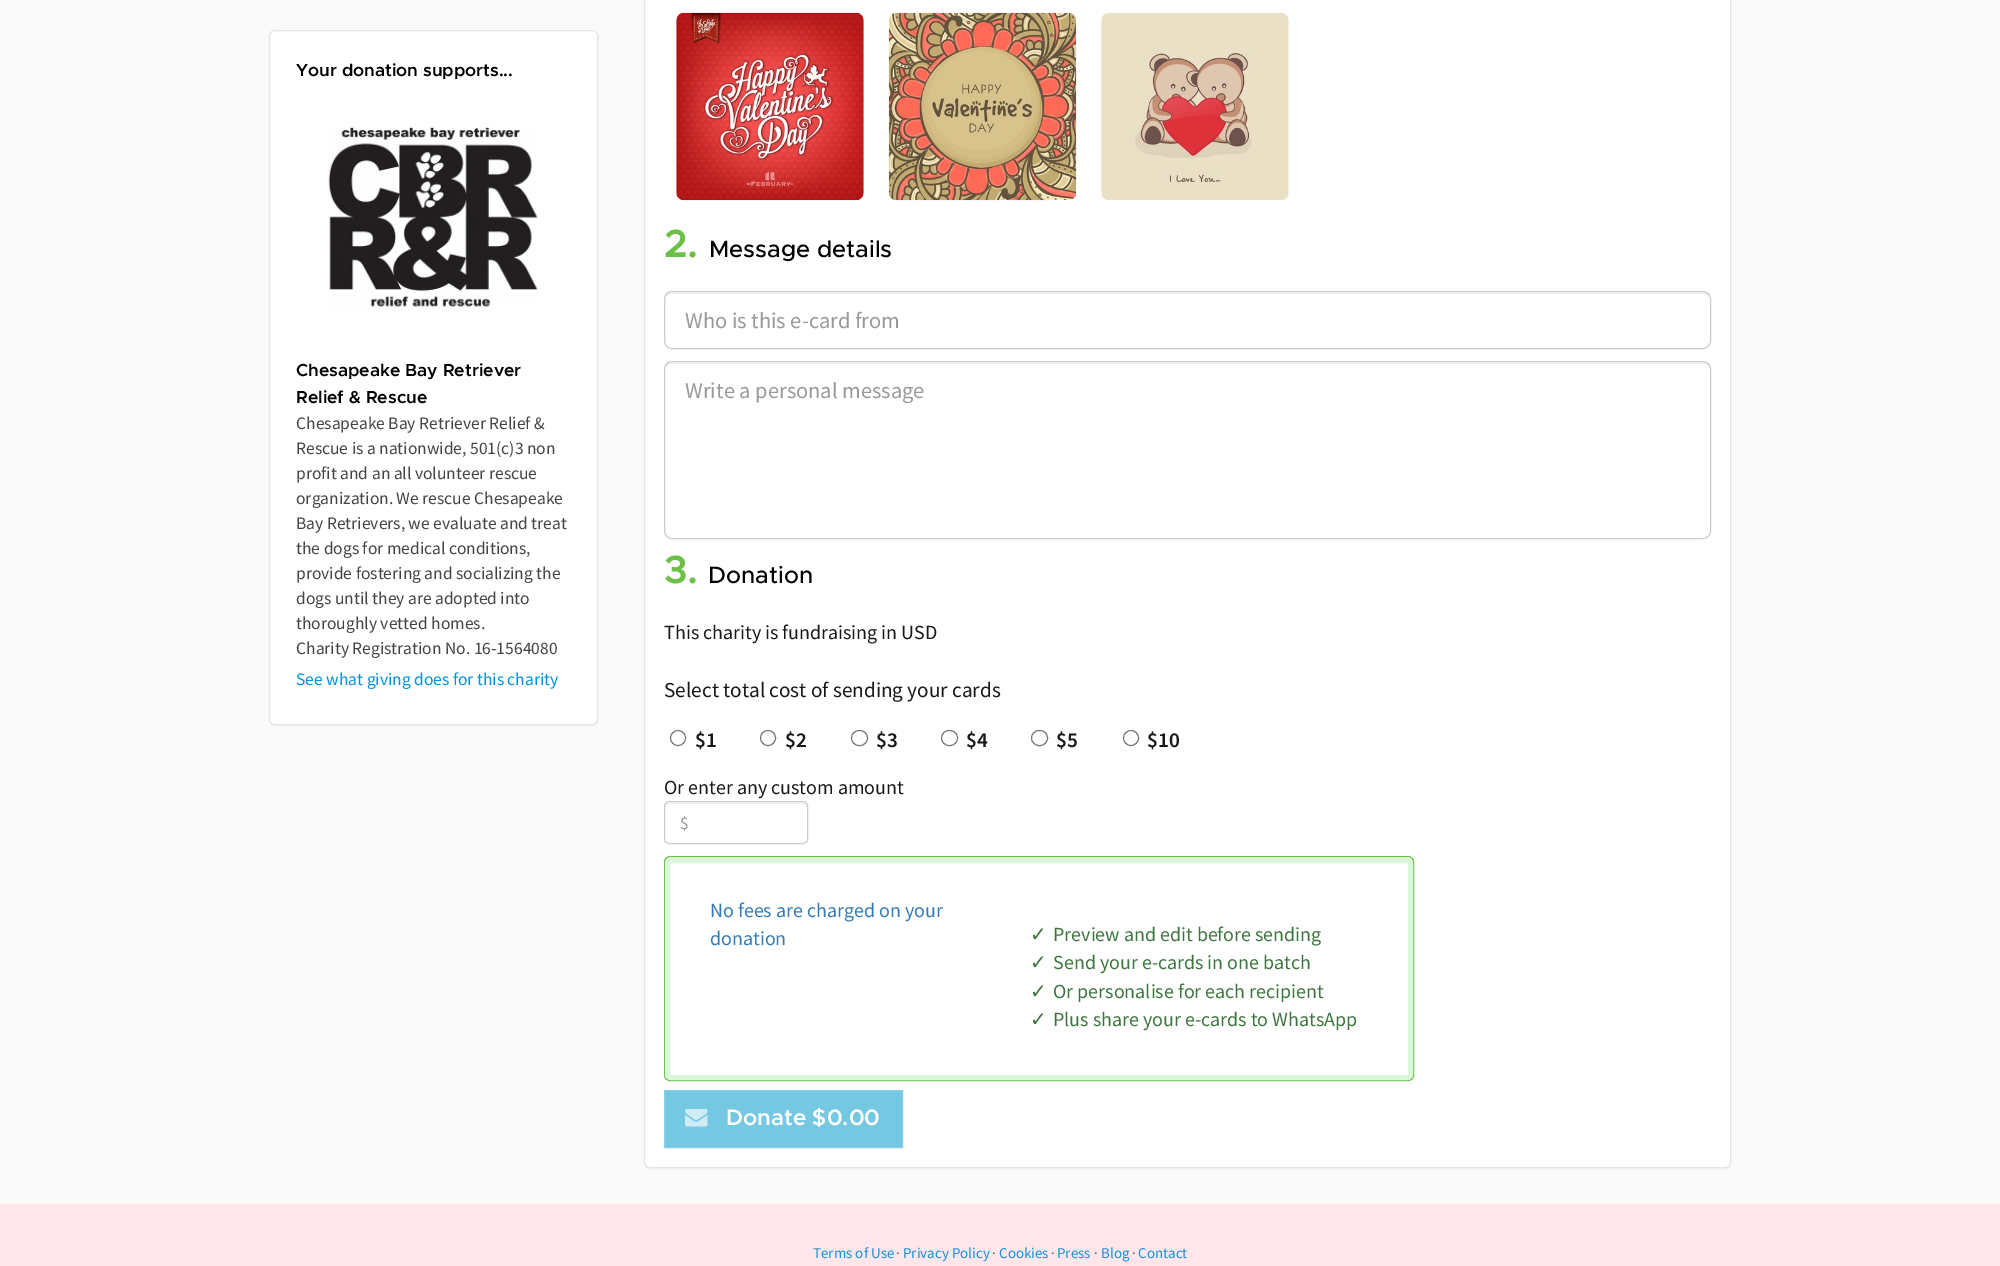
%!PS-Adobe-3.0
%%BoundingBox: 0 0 2000 1266
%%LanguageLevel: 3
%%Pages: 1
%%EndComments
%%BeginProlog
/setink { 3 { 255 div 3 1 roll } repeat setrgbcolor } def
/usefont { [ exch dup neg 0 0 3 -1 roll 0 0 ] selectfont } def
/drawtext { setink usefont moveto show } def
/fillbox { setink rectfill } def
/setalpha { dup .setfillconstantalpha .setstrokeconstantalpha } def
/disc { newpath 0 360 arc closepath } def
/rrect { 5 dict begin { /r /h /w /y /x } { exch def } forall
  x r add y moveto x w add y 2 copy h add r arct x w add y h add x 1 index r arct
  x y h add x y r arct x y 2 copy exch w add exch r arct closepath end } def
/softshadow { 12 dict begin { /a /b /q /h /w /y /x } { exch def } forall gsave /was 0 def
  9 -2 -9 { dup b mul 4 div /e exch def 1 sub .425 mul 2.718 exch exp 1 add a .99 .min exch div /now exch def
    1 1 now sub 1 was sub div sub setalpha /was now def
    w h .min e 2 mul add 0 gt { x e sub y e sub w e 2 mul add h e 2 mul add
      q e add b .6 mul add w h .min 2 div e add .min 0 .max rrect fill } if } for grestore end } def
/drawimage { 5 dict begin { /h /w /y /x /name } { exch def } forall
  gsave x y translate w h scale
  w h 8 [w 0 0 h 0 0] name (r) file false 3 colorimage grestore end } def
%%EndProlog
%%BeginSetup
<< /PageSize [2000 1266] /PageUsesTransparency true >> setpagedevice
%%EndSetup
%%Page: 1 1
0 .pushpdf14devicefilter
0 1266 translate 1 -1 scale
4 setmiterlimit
0 0 2000 1266 250 250 250 fillbox
0 0 0 setink
269 31 329 695 6 1 0.05 softshadow
255 255 255 setink
269.5 30.5 328 694 5.5 rrect gsave fill grestore
229 229 229 setink
stroke
(Your donation supports...) 296 76 /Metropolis-SemiBold 17.5 0 0 0 drawtext
(assets/img1.rgb) 328 127 210 180 drawimage
(Chesapeake Bay Retriever) 296 376 /Metropolis-SemiBold 17.5 0 0 0 drawtext
(Relief & Rescue) 296 403 /Metropolis-SemiBold 17.5 0 0 0 drawtext
(Chesapeake Bay Retriever Relief &) 296 429 /SourceSansPro-Regular 17.5 68 68 68 drawtext
(Rescue is a nationwide, 501\(c\)3 non) 296 454 /SourceSansPro-Regular 17.5 68 68 68 drawtext
(profit and an all volunteer rescue) 296 479 /SourceSansPro-Regular 17.5 68 68 68 drawtext
(organization. We rescue Chesapeake) 296 504 /SourceSansPro-Regular 17.5 68 68 68 drawtext
(Bay Retrievers, we evaluate and treat) 296 529 /SourceSansPro-Regular 17.5 68 68 68 drawtext
(the dogs for medical conditions,) 296 554 /SourceSansPro-Regular 17.5 68 68 68 drawtext
(provide fostering and socializing the) 296 579 /SourceSansPro-Regular 17.5 68 68 68 drawtext
(dogs until they are adopted into) 296 604 /SourceSansPro-Regular 17.5 68 68 68 drawtext
(thoroughly vetted homes.) 296 629 /SourceSansPro-Regular 17.5 68 68 68 drawtext
(Charity Registration No. 16-1564080) 296 654 /SourceSansPro-Regular 17.5 68 68 68 drawtext
(See what giving does for this charity) 296 685 /SourceSansPro-Regular 17.5 0 147 219 drawtext
0 0 0 setink
644 -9 1087 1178 6 1 0.05 softshadow
255 255 255 setink
644.5 -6.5 1086 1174 5.5 rrect gsave fill grestore
229 229 229 setink
stroke
(assets/img2.rgb) 676 12 188 189 drawimage
(assets/img3.rgb) 888 12 189 189 drawimage
(assets/img4.rgb) 1101 13 188 187 drawimage
(2.) 664 257 /Metropolis-Bold 38 108 192 71 drawtext
(Message details) 709 257 /Metropolis-Medium 23.75 0 0 0 drawtext
236 236 236 setink
671 294 moveto 1704 294 lineto 1707 294 1710 297 1710 300 curveto 1710 296 1708 293 1704 293 curveto 671 293 lineto 667 293 665 296 665 300 curveto 665 297 668 294 671 294 curveto closepath fill
204 204 204 setink
664.5 291.5 1046 57 7.5 rrect stroke
(Who is this e-card from) 685 328 /SourceSansPro-Regular 22.5 153 153 153 drawtext
236 236 236 setink
671 364 moveto 1704 364 lineto 1707 364 1710 367 1710 370 curveto 1710 366 1708 363 1704 363 curveto 671 363 lineto 667 363 665 366 665 370 curveto 665 367 668 364 671 364 curveto closepath fill
204 204 204 setink
664.5 361.5 1046 177 7.5 rrect stroke
(Write a personal message) 685 398 /SourceSansPro-Regular 22.5 153 153 153 drawtext
(3.) 664 583 /Metropolis-Bold 38 108 192 71 drawtext
(Donation) 708 583 /Metropolis-Medium 23.75 0 0 0 drawtext
(This charity is fundraising in USD) 664 639 /SourceSansPro-Regular 20 24 24 24 drawtext
(Select total cost of sending your cards) 664 697 /SourceSansPro-Regular 21.25 24 24 24 drawtext
118 118 118 setink
678 738 7.5 disc stroke
($1) 695 747 /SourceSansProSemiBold-SemiBold 21.25 24 24 24 drawtext
118 118 118 setink
768 738 7.5 disc stroke
($2) 785 747 /SourceSansProSemiBold-SemiBold 21.25 24 24 24 drawtext
118 118 118 setink
851.5 730.5 16 15 7.5 rrect stroke
($3) 876 747 /SourceSansProSemiBold-SemiBold 21.25 24 24 24 drawtext
118 118 118 setink
941.5 730.5 16 15 7.5 rrect stroke
($4) 966 747 /SourceSansProSemiBold-SemiBold 21.25 24 24 24 drawtext
118 118 118 setink
1031.5 730.5 16 15 7.5 rrect stroke
($5) 1056 747 /SourceSansProSemiBold-SemiBold 21.25 24 24 24 drawtext
118 118 118 setink
1131 738 7.5 disc stroke
($10) 1147 747 /SourceSansProSemiBold-SemiBold 21.25 24 24 24 drawtext
(Or enter any custom amount) 664 794 /SourceSansPro-Regular 20 24 24 24 drawtext
236 236 236 setink
669 804 moveto 802 804 lineto 805 804 806 805 806 808 curveto 806 807 lineto 806 805 804 803 802 803 curveto 669 803 lineto 667 803 665 805 665 807 curveto 665 808 lineto 665 805 667 804 669 804 curveto closepath fill
204 204 204 setink
664.5 801.5 143 42 4.5 rrect stroke
($) 680 829 /SourceSansPro-Regular 17.5 153 153 153 drawtext
108 192 71 setink
664.5 856.5 749 224 5.5 rrect stroke
218 248 217 setink
5 setlinewidth
667.5 860.5 743 217 3.5 rrect stroke
(No fees are charged on your) 710 917 /SourceSansPro-Regular 20 51 122 183 drawtext
(donation) 710 945 /SourceSansPro-Regular 20 51 122 183 drawtext
(✓) 1030 941 /DejaVuSans-Regular 20 60 118 62 drawtext
(Preview and edit before sending) 1053 941 /SourceSansPro-Regular 20 60 118 62 drawtext
(✓) 1030 969 /DejaVuSans-Regular 20 60 118 62 drawtext
(Send your e-cards in one batch) 1053 969 /SourceSansPro-Regular 20 60 118 62 drawtext
(✓) 1030 998 /DejaVuSans-Regular 20 60 118 62 drawtext
(Or personalise for each recipient) 1053 998 /SourceSansPro-Regular 20 60 118 62 drawtext
(✓) 1030 1026 /DejaVuSans-Regular 20 60 118 62 drawtext
(Plus share your e-cards to WhatsApp) 1053 1026 /SourceSansPro-Regular 20 60 118 62 drawtext
117 200 226 setink
664.5 1090.5 moveto 902.5 1090.5 lineto 902.5 1147.5 lineto 664.5 1147.5 lineto closepath gsave fill grestore
135 209 231 setink
1 setlinewidth
stroke
(assets/img5.rgb) 685 1108 23 19 drawimage
(Donate $0.00) 726 1125 /Metropolis-SemiBold 22.5 255 255 255 drawtext
0 1204 2000 62 254 230 234 fillbox
(Terms of Use) 813 1258 /SourceSansPro-Regular 15 19 145 218 drawtext
(·) 896 1258 /SourceSansPro-Regular 15 102 102 102 drawtext
(Privacy Policy) 903 1258 /SourceSansPro-Regular 15 19 145 218 drawtext
(·) 992 1258 /SourceSansPro-Regular 15 102 102 102 drawtext
(Cookies) 999 1258 /SourceSansPro-Regular 15 19 145 218 drawtext
(·) 1051 1258 /SourceSansPro-Regular 15 102 102 102 drawtext
(Press) 1057 1258 /SourceSansPro-Regular 15 19 145 218 drawtext
(·) 1094 1258 /SourceSansPro-Regular 15 102 102 102 drawtext
(Blog) 1101 1258 /SourceSansPro-Regular 15 19 145 218 drawtext
(·) 1132 1258 /SourceSansPro-Regular 15 102 102 102 drawtext
(Contact) 1138 1258 /SourceSansPro-Regular 15 19 145 218 drawtext
.poppdf14devicefilter showpage
%%EOF
